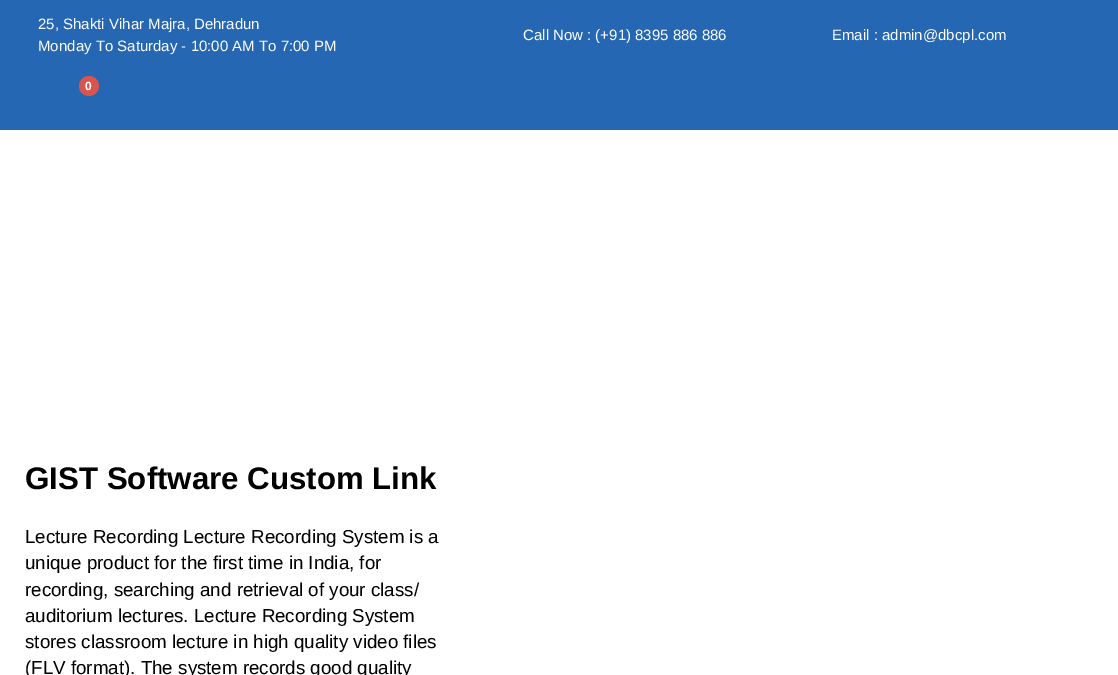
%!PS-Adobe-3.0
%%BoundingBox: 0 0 1118 675
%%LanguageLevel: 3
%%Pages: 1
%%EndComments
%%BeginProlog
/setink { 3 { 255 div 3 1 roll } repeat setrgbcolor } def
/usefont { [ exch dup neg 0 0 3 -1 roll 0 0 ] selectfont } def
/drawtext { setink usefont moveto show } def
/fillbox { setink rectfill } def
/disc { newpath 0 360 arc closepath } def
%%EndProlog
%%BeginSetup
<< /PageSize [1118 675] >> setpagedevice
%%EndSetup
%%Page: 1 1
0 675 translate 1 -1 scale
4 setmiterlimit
0 0 1118 675 255 255 255 fillbox
0 0 1118 130 37 103 179 fillbox
(25, Shakti Vihar Majra, Dehradun) 38 29 /LiberationSans-Regular 15 255 255 255 drawtext
(Monday To Saturday - 10:00 AM To 7:00 PM) 38 51 /LiberationSans-Regular 15 255 255 255 drawtext
(Call Now : \(+91\) 8395 886 886) 523 40 /LiberationSans-Regular 15 255 255 255 drawtext
(Email : admin@dbcpl.com) 832 40 /LiberationSans-Regular 15 255 255 255 drawtext
217 83 79 setink
89 86 10 disc fill
(0) 85 90 /LiberationSans-Bold 12 255 255 255 drawtext
(GIST Software Custom Link) 25 489 /LiberationSans-Bold 31.25 0 0 0 drawtext
(Lecture Recording Lecture Recording System is a) 25 543 /LiberationSans-Regular 18.75 0 0 0 drawtext
(unique product for the first time in India, for) 25 569 /LiberationSans-Regular 18.75 0 0 0 drawtext
(recording, searching and retrieval of your class/) 25 596 /LiberationSans-Regular 18.75 0 0 0 drawtext
(auditorium lectures. Lecture Recording System) 25 622 /LiberationSans-Regular 18.75 0 0 0 drawtext
(stores classroom lecture in high quality video files) 25 648 /LiberationSans-Regular 18.75 0 0 0 drawtext
(\(FLV format\). The system records good quality) 25 674 /LiberationSans-Regular 18.75 0 0 0 drawtext
showpage
%%EOF
